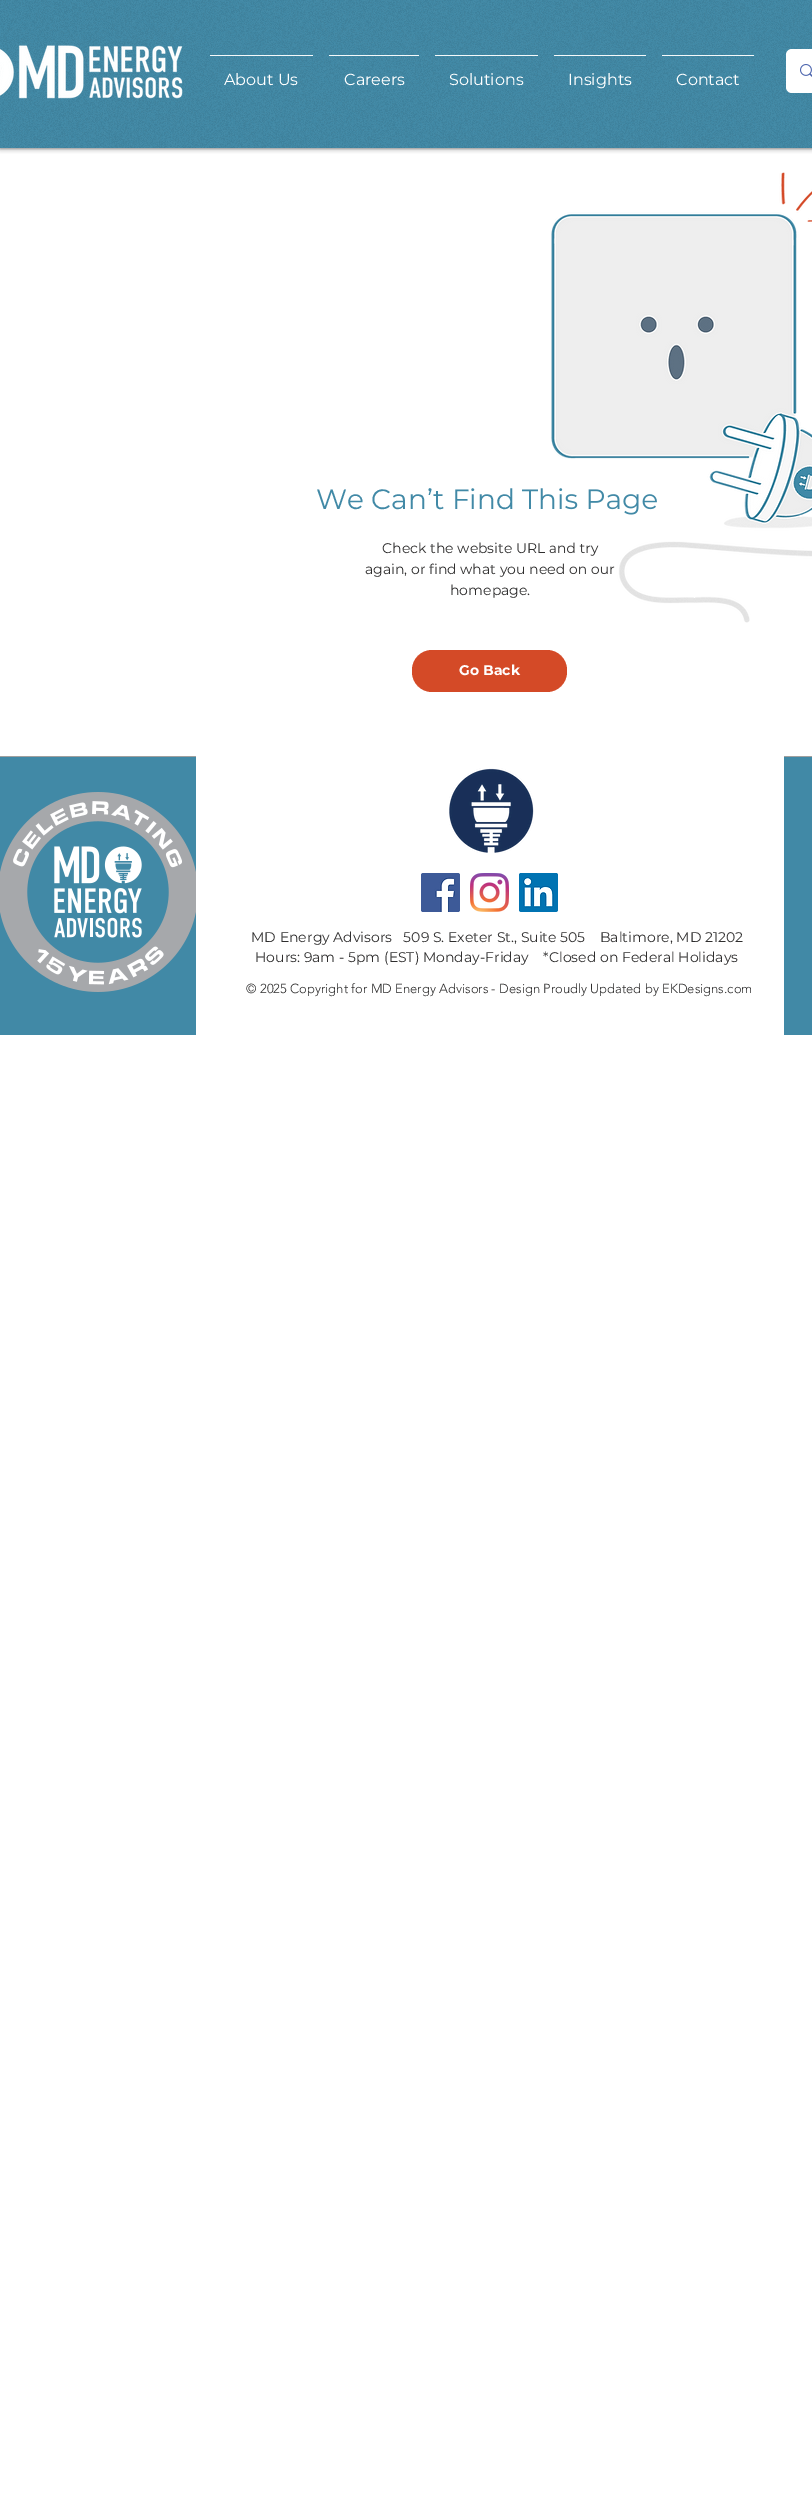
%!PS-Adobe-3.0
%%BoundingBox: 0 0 812 2500
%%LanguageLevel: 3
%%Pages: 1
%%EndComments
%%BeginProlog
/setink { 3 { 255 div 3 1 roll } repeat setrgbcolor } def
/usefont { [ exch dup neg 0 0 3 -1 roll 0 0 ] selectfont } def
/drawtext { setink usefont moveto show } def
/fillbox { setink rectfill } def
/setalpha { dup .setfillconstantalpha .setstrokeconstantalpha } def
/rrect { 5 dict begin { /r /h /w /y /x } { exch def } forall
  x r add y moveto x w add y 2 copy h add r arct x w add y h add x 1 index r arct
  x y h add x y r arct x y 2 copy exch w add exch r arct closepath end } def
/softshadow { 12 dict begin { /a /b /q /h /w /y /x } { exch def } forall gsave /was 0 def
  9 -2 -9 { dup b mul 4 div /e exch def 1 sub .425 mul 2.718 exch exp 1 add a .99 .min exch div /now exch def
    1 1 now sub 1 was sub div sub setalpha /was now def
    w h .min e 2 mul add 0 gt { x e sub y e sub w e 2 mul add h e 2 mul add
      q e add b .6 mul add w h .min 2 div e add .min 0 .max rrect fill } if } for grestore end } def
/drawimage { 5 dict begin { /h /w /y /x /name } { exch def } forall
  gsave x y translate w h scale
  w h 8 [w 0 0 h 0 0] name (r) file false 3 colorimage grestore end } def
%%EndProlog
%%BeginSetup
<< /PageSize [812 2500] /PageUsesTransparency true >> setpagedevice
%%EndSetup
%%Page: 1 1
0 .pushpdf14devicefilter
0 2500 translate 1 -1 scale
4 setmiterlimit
0 0 812 2500 255 255 255 fillbox
0 0 0 setink
0 0 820 148 0 2.5 0.7 softshadow
0 0 812 148 65 137 166 fillbox
(assets/img1.rgb) 0 0 812 148 drawimage
(assets/img2.rgb) 0 45 183 54 drawimage
0.95 setalpha
210 55 103 1 255 255 255 fillbox
1 setalpha
(About Us) 224 85 /Montserrat-Regular 16 255 255 255 drawtext
0.95 setalpha
329 55 90 1 255 255 255 fillbox
1 setalpha
(Careers) 344 85 /Montserrat-Regular 16 255 255 255 drawtext
0.95 setalpha
435 55 103 1 255 255 255 fillbox
1 setalpha
(Solutions) 449 85 /Montserrat-Regular 16 255 255 255 drawtext
0.95 setalpha
554 55 92 1 255 255 255 fillbox
1 setalpha
(Insights) 568 85 /Montserrat-Regular 16 255 255 255 drawtext
0.95 setalpha
662 55 92 1 255 255 255 fillbox
1 setalpha
(Contact) 676 85 /Montserrat-Regular 16 255 255 255 drawtext
786 49 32 44 6 rrect fill
(assets/img3.rgb) 800 64 12 13 drawimage
(We Can’t Find This Page) 316 509 /Montserrat-Regular 28 65 137 166 drawtext
(Check the website URL and try) 382 553 /Montserrat-Regular 14 47 46 46 drawtext
(again, or find what you need on our) 365 574 /Montserrat-Regular 14 47 46 46 drawtext
(assets/img4.rgb) 551 172 261 451 drawimage
(homepage.) 450 595 /Montserrat-Regular 14 47 46 46 drawtext
212 74 39 setink
412 650 155 42 20 rrect fill
(Go Back) 459 675 /Montserrat-Bold 14 255 255 255 drawtext
0 756 812 1 160 160 159 fillbox
0 757 812 278 65 137 166 fillbox
(assets/img5.rgb) 0 792 196 200 drawimage
196 756 588 279 255 255 255 fillbox
(assets/img6.rgb) 449 768 85 85 drawimage
(assets/img7.rgb) 421 873 39 39 drawimage
(assets/img8.rgb) 470 873 39 39 drawimage
(assets/img9.rgb) 519 873 39 39 drawimage
(MD Energy Advisors   509 S. Exeter St., Suite 505    Baltimore, MD 21202) 251 942 /Montserrat-Regular 14 47 46 46 drawtext
(Hours: 9am - 5pm \(EST\) Monday-Friday    *Closed on Federal Holidays) 255 962 /Montserrat-Regular 14 47 46 46 drawtext
(© 2025 Copyright for MD Energy Advisors - Design Proudly Updated by EKDesigns.com) 246 993 /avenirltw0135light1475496-Light 13 47 46 46 drawtext
.poppdf14devicefilter showpage
%%EOF
